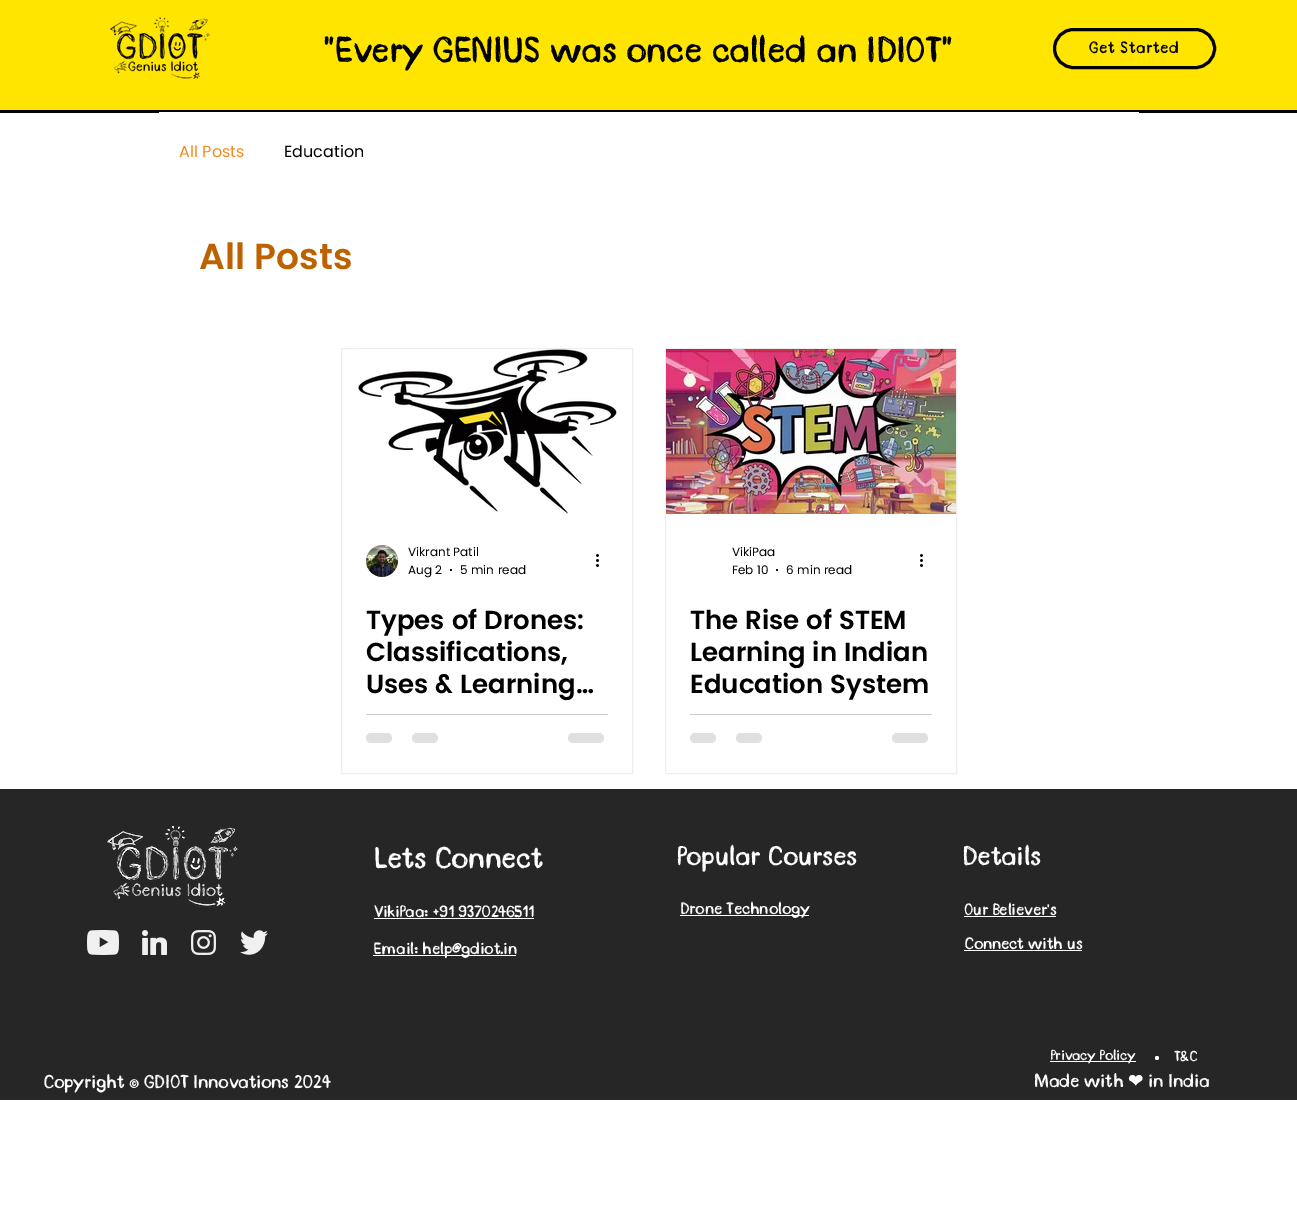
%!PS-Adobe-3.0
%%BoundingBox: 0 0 1297 1219
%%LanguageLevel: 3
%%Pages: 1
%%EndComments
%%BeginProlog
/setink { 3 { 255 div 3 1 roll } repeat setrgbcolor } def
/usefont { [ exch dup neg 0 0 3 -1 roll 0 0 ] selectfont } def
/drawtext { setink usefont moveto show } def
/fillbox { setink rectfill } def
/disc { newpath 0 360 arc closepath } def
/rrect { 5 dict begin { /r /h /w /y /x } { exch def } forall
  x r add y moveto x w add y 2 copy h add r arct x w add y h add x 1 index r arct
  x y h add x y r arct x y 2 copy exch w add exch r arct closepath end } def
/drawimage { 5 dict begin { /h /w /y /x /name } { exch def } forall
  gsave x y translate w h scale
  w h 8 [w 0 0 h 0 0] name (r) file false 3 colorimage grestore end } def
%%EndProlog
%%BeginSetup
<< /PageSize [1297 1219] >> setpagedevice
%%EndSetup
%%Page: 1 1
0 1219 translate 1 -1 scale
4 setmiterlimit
0 0 1297 1219 255 255 255 fillbox
0 0 1297 110 255 229 0 fillbox
(assets/img1.rgb) 110 17 100 63 drawimage
("Every GENIUS was once called an IDIOT") 323 62 /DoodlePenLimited-Bold 35 0 0 0 drawtext
3 setlinewidth
1054.5 29.5 160 38 19 rrect stroke
/DoodlePenLimited-Bold 16 usefont
1089 53 moveto 0.75 0 (Get Started) ashow
0 110 1297 3 0 0 0 fillbox
159 112 980 1 255 255 255 fillbox
(All Posts) 179 157 /Poppins-Regular 16 240 140 32 drawtext
(Education) 284 157 /Poppins-Regular 16 0 0 0 drawtext
(All Posts) 199 269 /Poppins-SemiBold 36 188 98 0 drawtext
238 238 238 setink
1 setlinewidth
341.5 348.5 291 425 rectstroke
(assets/img2.rgb) 358 349 259 165 drawimage
(assets/img3.rgb) 366 545 32 32 drawimage
(Vikrant Patil) 408 556 /Poppins-Regular 12 0 0 0 drawtext
(Aug 2) 408 574 /Poppins-Regular 12 0 0 0 drawtext
451 570 1 disc fill
(5 min read) 460 574 /Poppins-Regular 12 0 0 0 drawtext
(assets/img4.rgb) 596 554 3 13 drawimage
(Types of Drones:) 366 629 /Poppins-SemiBold 26 0 0 0 drawtext
(Classifications,) 366 661 /Poppins-SemiBold 26 0 0 0 drawtext
(Uses & Learning…) 366 693 /Poppins-SemiBold 26 0 0 0 drawtext
366 714 242 1 204 204 204 fillbox
224 224 224 setink
366 733 26 10 5 rrect fill
412 733 26 10 5 rrect fill
568 733 36 10 5 rrect fill
238 238 238 setink
665.5 348.5 291 425 rectstroke
(assets/img5.rgb) 666 349 290 165 drawimage
(VikiPaa) 732 556 /Poppins-Regular 12 0 0 0 drawtext
(Feb 10) 732 574 /Poppins-Regular 12 0 0 0 drawtext
777 570 1 disc fill
(6 min read) 786 574 /Poppins-Regular 12 0 0 0 drawtext
(assets/img4.rgb) 920 554 3 13 drawimage
(The Rise of STEM) 690 629 /Poppins-SemiBold 26 0 0 0 drawtext
(Learning in Indian) 690 661 /Poppins-SemiBold 26 0 0 0 drawtext
(Education System) 690 693 /Poppins-SemiBold 26 0 0 0 drawtext
690 714 242 1 204 204 204 fillbox
224 224 224 setink
690 733 26 10 5 rrect fill
736 733 26 10 5 rrect fill
892 733 36 10 5 rrect fill
0 789 1297 311 38 38 38 fillbox
(assets/img6.rgb) 107 826 131 81 drawimage
(assets/img7.rgb) 107 826 131 81 drawimage
(assets/img8.rgb) 107 826 131 81 drawimage
(Lets Connect) 374 868 /DoodlePenLimited-Bold 29 255 255 255 drawtext
(Popular Courses) 676 865 /DoodlePenLimited-Bold 26 255 255 255 drawtext
(Details) 962 865 /DoodlePenLimited-Bold 26 255 255 255 drawtext
(VikiPaa: +91 9370246511) 374 917 /DoodlePenLimited-Bold 16 255 255 255 drawtext
374 918 160 1 255 255 255 fillbox
680 915 129 1 255 255 255 fillbox
(Drone Technology) 680 914 /DoodlePenLimited-Bold 16 255 255 255 drawtext
(Our Believer's) 964 915 /DoodlePenLimited-Bold 16 255 255 255 drawtext
964 916 92 1 255 255 255 fillbox
(assets/img9.rgb) 87 930 32 25 drawimage
(assets/img10.rgb) 142 930 25 25 drawimage
(assets/img11.rgb) 191 930 25 25 drawimage
(assets/img12.rgb) 240 930 28 25 drawimage
373 955 143 1 255 255 255 fillbox
(Email: help) 373 954 /DoodlePenLimited-Bold 16 255 255 255 drawtext
(@) 452 954 /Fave-Bold 16 255 255 255 drawtext
(gdiot.in) 461 954 /DoodlePenLimited-Bold 16 255 255 255 drawtext
(Connect with us) 964 949 /DoodlePenLimited-Bold 16 255 255 255 drawtext
964 950 118 1 255 255 255 fillbox
1050 1061 86 1 255 255 255 fillbox
(Privacy Policy) 1050 1060 /DoodlePenLimited-Bold 14 255 255 255 drawtext
1157 1058 2 disc fill
(T&C) 1174 1061 /DoodlePenLimited-Bold 14 255 255 255 drawtext
(Copyright © GDIOT Innovations 2024) 43 1088 /DoodlePenLimited-Bold 18 255 255 255 drawtext
(Made with) 1034 1087 /DoodlePenLimited-Bold 18 255 255 255 drawtext
(❤) 1128 1087 /DejaVuSans-Bold 18 255 255 255 drawtext
(in India) 1148 1087 /DoodlePenLimited-Bold 18 255 255 255 drawtext
showpage
%%EOF
